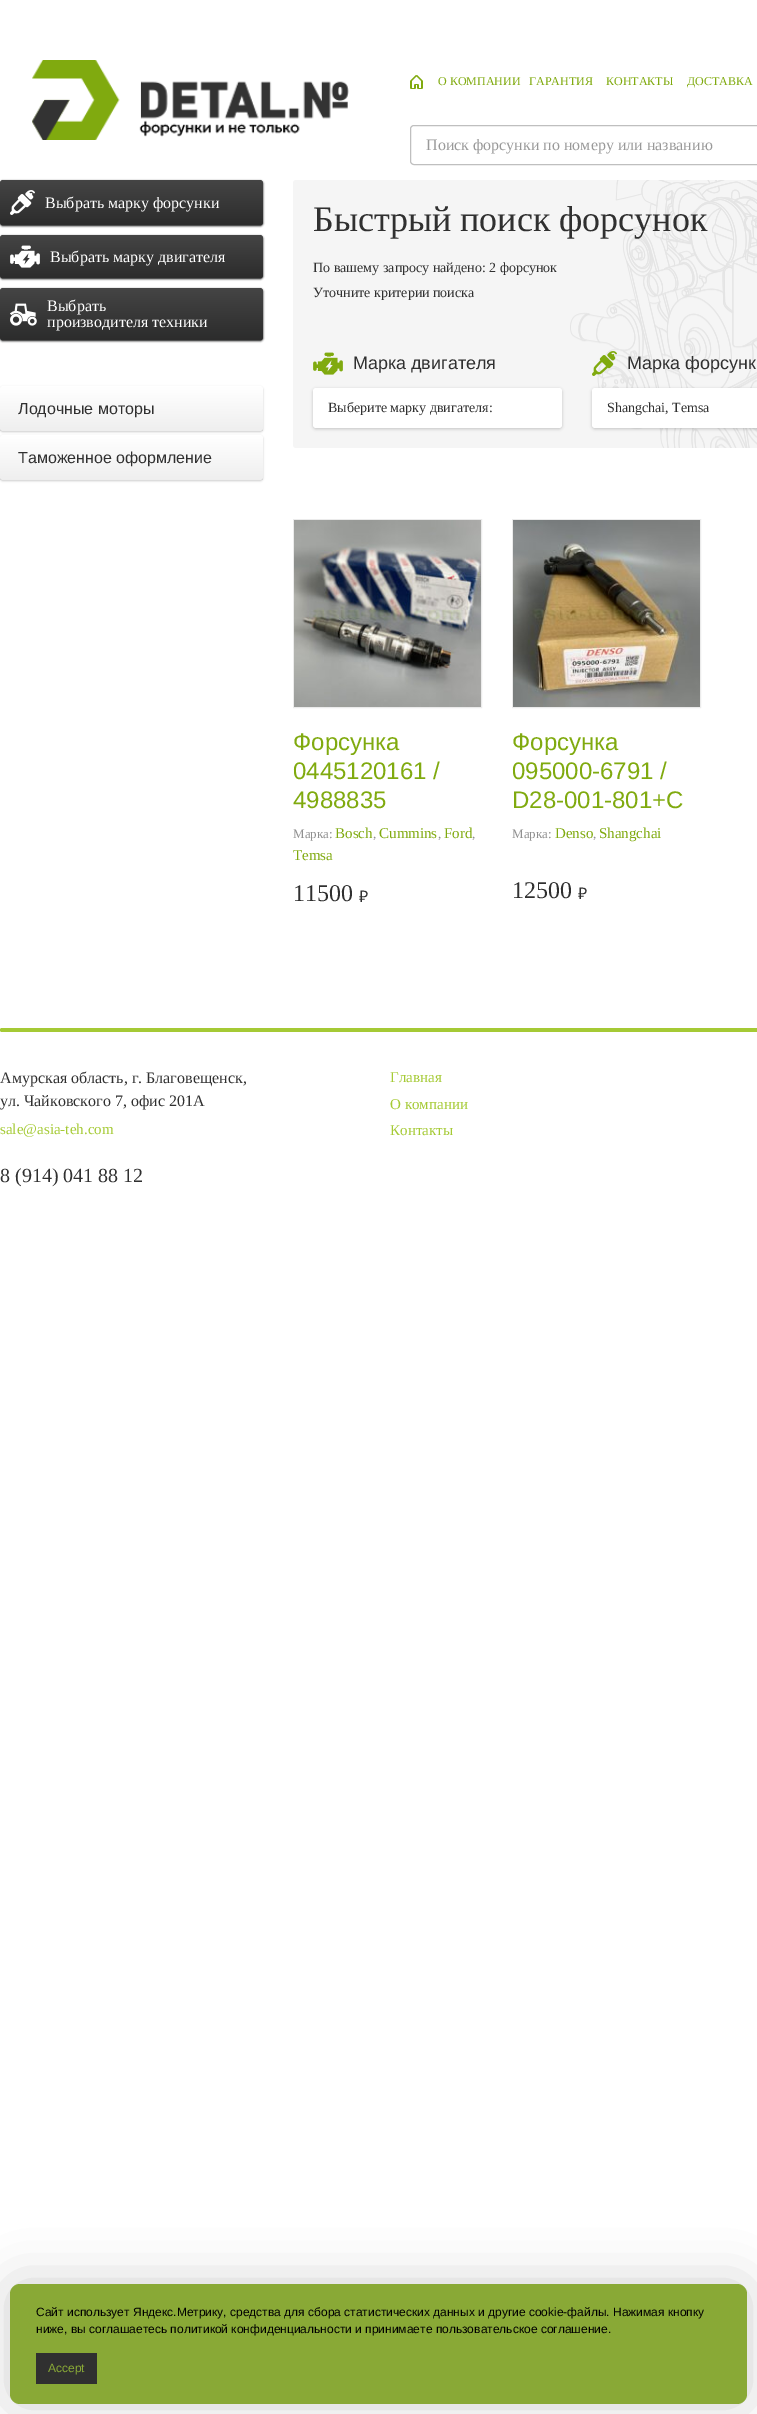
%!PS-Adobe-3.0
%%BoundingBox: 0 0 757 2414
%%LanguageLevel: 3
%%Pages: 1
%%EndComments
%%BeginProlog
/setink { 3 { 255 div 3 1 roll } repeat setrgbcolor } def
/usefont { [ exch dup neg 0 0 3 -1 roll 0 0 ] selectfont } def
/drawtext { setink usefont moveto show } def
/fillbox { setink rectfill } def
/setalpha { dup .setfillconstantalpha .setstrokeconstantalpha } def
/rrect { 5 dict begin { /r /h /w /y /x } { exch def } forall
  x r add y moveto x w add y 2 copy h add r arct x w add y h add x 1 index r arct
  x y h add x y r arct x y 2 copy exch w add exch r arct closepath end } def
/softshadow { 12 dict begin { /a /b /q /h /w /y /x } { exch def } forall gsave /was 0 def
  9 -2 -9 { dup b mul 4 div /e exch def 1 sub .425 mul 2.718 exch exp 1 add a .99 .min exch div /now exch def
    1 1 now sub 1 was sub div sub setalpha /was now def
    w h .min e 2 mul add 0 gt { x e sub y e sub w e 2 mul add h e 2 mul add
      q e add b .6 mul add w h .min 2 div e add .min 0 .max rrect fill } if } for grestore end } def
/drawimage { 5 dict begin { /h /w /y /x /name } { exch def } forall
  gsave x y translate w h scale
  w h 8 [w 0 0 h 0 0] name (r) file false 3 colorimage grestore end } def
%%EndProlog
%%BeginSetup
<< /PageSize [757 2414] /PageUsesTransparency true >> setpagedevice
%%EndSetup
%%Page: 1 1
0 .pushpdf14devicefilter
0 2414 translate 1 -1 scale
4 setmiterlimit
0 0 757 2414 255 255 255 fillbox
(assets/img1.rgb) 32 60 317 80 drawimage
(assets/img2.rgb) 410 75 13 14 drawimage
(О КОМПАНИИ) 438 85 /LiberationSerif-Regular 12 128 170 15 drawtext
(ГАРАНТИЯ) 529 85 /LiberationSerif-Regular 12 128 170 15 drawtext
(КОНТАКТЫ) 606 85 /LiberationSerif-Regular 12 128 170 15 drawtext
(ДОСТАВКА) 687 85 /LiberationSerif-Regular 12 128 170 15 drawtext
191 191 191 setink
410.5 125.5 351 39 3.5 rrect stroke
(Поиск форсунки по номеру или названию) 426 150 /LiberationSerif-Regular 16 153 153 153 drawtext
1 2 2 setink
0 181 263 45 3 1 1 softshadow
48 48 48 setink
0 180 263 45 3 rrect fill
0.1 setalpha
gsave 0 180 263 45 3 rrect clip newpath
<< /ShadingType 2 /ColorSpace /DeviceRGB /Coords [132 225 132 180] /Extend [true true] /Function << /FunctionType 2 /Domain [0 1] /C0 [0.004 0.008 0.008] /C1 [1 1 1] /N 1 >> >> shfill grestore
1 setalpha
(assets/img3.rgb) 10 190 25 25 drawimage
(Выбрать марку форсунки) 45 208 /LiberationSerif-Regular 16 255 255 255 drawtext
1 2 2 setink
0 236 263 43 3 1 1 softshadow
48 48 48 setink
0 235 263 43 3 rrect fill
0.1 setalpha
gsave 0 235 263 43 3 rrect clip newpath
<< /ShadingType 2 /ColorSpace /DeviceRGB /Coords [132 278 132 235] /Extend [true true] /Function << /FunctionType 2 /Domain [0 1] /C0 [0.004 0.008 0.008] /C1 [1 1 1] /N 1 >> >> shfill grestore
1 setalpha
(assets/img4.rgb) 10 245 30 23 drawimage
(Выбрать марку двигателя) 50 262 /LiberationSerif-Regular 16 255 255 255 drawtext
1 2 2 setink
0 289 263 52 3 1 1 softshadow
48 48 48 setink
0 288 263 52 3 rrect fill
0.1 setalpha
gsave 0 288 263 52 3 rrect clip newpath
<< /ShadingType 2 /ColorSpace /DeviceRGB /Coords [132 340 132 288] /Extend [true true] /Function << /FunctionType 2 /Domain [0 1] /C0 [0.004 0.008 0.008] /C1 [1 1 1] /N 1 >> >> shfill grestore
1 setalpha
(assets/img5.rgb) 10 303 27 23 drawimage
(Выбрать) 47 311 /LiberationSerif-Regular 16 255 255 255 drawtext
(производителя техники) 47 327 /LiberationSerif-Regular 16 255 255 255 drawtext
1 2 2 setink
0 387 263 45 3 1 0.2 softshadow
255 255 255 setink
0 386 263 45 3 rrect fill
0.07 setalpha
gsave 0 386 263 45 3 rrect clip newpath
<< /ShadingType 2 /ColorSpace /DeviceRGB /Coords [132 431 132 386] /Extend [true true] /Function << /FunctionType 2 /Domain [0 1] /C0 [0.004 0.008 0.008] /C1 [1 1 1] /N 1 >> >> shfill grestore
1 setalpha
(Лодочные моторы) 18 414 /LiberationSans-Regular 16 48 48 48 drawtext
1 2 2 setink
0 436 263 45 3 1 0.2 softshadow
255 255 255 setink
0 435 263 45 3 rrect fill
0.07 setalpha
gsave 0 435 263 45 3 rrect clip newpath
<< /ShadingType 2 /ColorSpace /DeviceRGB /Coords [132 480 132 435] /Extend [true true] /Function << /FunctionType 2 /Domain [0 1] /C0 [0.004 0.008 0.008] /C1 [1 1 1] /N 1 >> >> shfill grestore
1 setalpha
(Таможенное оформление) 18 463 /LiberationSans-Regular 16 48 48 48 drawtext
245 245 245 setink
293 180 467 268 3 rrect fill
(assets/img6.rgb) 570 180 187 268 drawimage
(Быстрый поиск форсунок) 313 231 /LiberationSerif-Regular 36 48 48 48 drawtext
(По вашему запросу найдено: 2 форсунок) 313 272 /LiberationSerif-Regular 14 48 48 48 drawtext
(Уточните критерии поиска) 313 297 /LiberationSerif-Regular 14 48 48 48 drawtext
(assets/img7.rgb) 313 352 30 23 drawimage
(Марка двигателя) 353 369 /LiberationSans-Regular 18 48 48 48 drawtext
1 2 2 setink
313 389 249 40 3 1.5 0.2 softshadow
255 255 255 setink
313 388 249 40 3 rrect fill
(Выберите марку двигателя:) 328 412 /LiberationSerif-Regular 14 48 48 48 drawtext
(assets/img8.rgb) 592 351 25 25 drawimage
(Марка форсунк) 627 369 /LiberationSans-Regular 18 48 48 48 drawtext
1 2 2 setink
592 389 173 40 3 1.5 0.2 softshadow
255 255 255 setink
592 388 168 40 3 rrect fill
(Shangchai, Temsa) 607 412 /LiberationSerif-Regular 14 48 48 48 drawtext
235 235 235 setink
293.5 519.5 188 188 rectstroke
(assets/img9.rgb) 294 520 187 187 drawimage
(Форсунка) 293 750 /LiberationSans-Regular 24 128 170 15 drawtext
(0445120161 /) 293 779 /LiberationSans-Regular 24 128 170 15 drawtext
(4988835) 293 808 /LiberationSans-Regular 24 128 170 15 drawtext
(Марка:) 293 838 /LiberationSerif-Regular 13 144 144 144 drawtext
(Bosch) 335 838 /LiberationSerif-Regular 15 128 170 15 drawtext
(,) 373 838 /LiberationSerif-Regular 13 144 144 144 drawtext
(Cummins) 379 838 /LiberationSerif-Regular 15 128 170 15 drawtext
(,) 438 838 /LiberationSerif-Regular 13 144 144 144 drawtext
(Ford) 444 838 /LiberationSerif-Regular 15 128 170 15 drawtext
(,) 472 838 /LiberationSerif-Regular 13 144 144 144 drawtext
(Temsa) 293 860 /LiberationSerif-Regular 15 128 170 15 drawtext
(11500) 293 901 /LiberationSerif-Regular 24 48 48 48 drawtext
(₽) 359 902 /NotoSans-Regular 16 48 48 48 drawtext
235 235 235 setink
512.5 519.5 188 188 rectstroke
(assets/img10.rgb) 513 520 187 187 drawimage
(Форсунка) 512 750 /LiberationSans-Regular 24 128 170 15 drawtext
(095000-6791 /) 512 779 /LiberationSans-Regular 24 128 170 15 drawtext
(D28-001-801+C) 512 808 /LiberationSans-Regular 24 128 170 15 drawtext
(Марка:) 512 838 /LiberationSerif-Regular 13 144 144 144 drawtext
(Denso) 555 838 /LiberationSerif-Regular 15 128 170 15 drawtext
(,) 593 838 /LiberationSerif-Regular 13 144 144 144 drawtext
(Shangchai) 599 838 /LiberationSerif-Regular 15 128 170 15 drawtext
(12500) 512 898 /LiberationSerif-Regular 24 48 48 48 drawtext
(₽) 578 899 /NotoSans-Regular 16 48 48 48 drawtext
165 202 53 setink
0 1028 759 4 2 rrect fill
(Амурская область, г. Благовещенск,) 0 1083 /LiberationSerif-Regular 16 48 48 48 drawtext
(ул. Чайковского 7, офис 201А) 0 1106 /LiberationSerif-Regular 16 48 48 48 drawtext
(sale@asia-teh.com) 0 1134 /LiberationSerif-Regular 15 165 202 53 drawtext
(8 \(914\) 041 88 12) 0 1182 /LiberationSerif-Regular 20 48 48 48 drawtext
(Главная) 390 1082 /LiberationSerif-Regular 15 165 202 53 drawtext
(О компании) 390 1109 /LiberationSerif-Regular 15 165 202 53 drawtext
(Контакты) 390 1135 /LiberationSerif-Regular 15 165 202 53 drawtext
0 0 0 setink
10 2284 737 120 10 25 0.19 softshadow
137 169 54 setink
10 2284 737 120 10 rrect fill
(Сайт использует Яндекс.Метрику, средства для сбора статистических данных и другие cookie-файлы. Нажимая кнопку) 36 2316 /LiberationSans-Regular 12 0 0 0 drawtext
(ниже, вы соглашаетесь политикой конфиденциальности и принимаете пользовательское соглашение.) 36 2333 /LiberationSans-Regular 12 0 0 0 drawtext
36 2353 61 31 48 48 48 fillbox
(Accept) 48 2372 /LiberationSans-Regular 12 137 169 54 drawtext
.poppdf14devicefilter showpage
%%EOF
